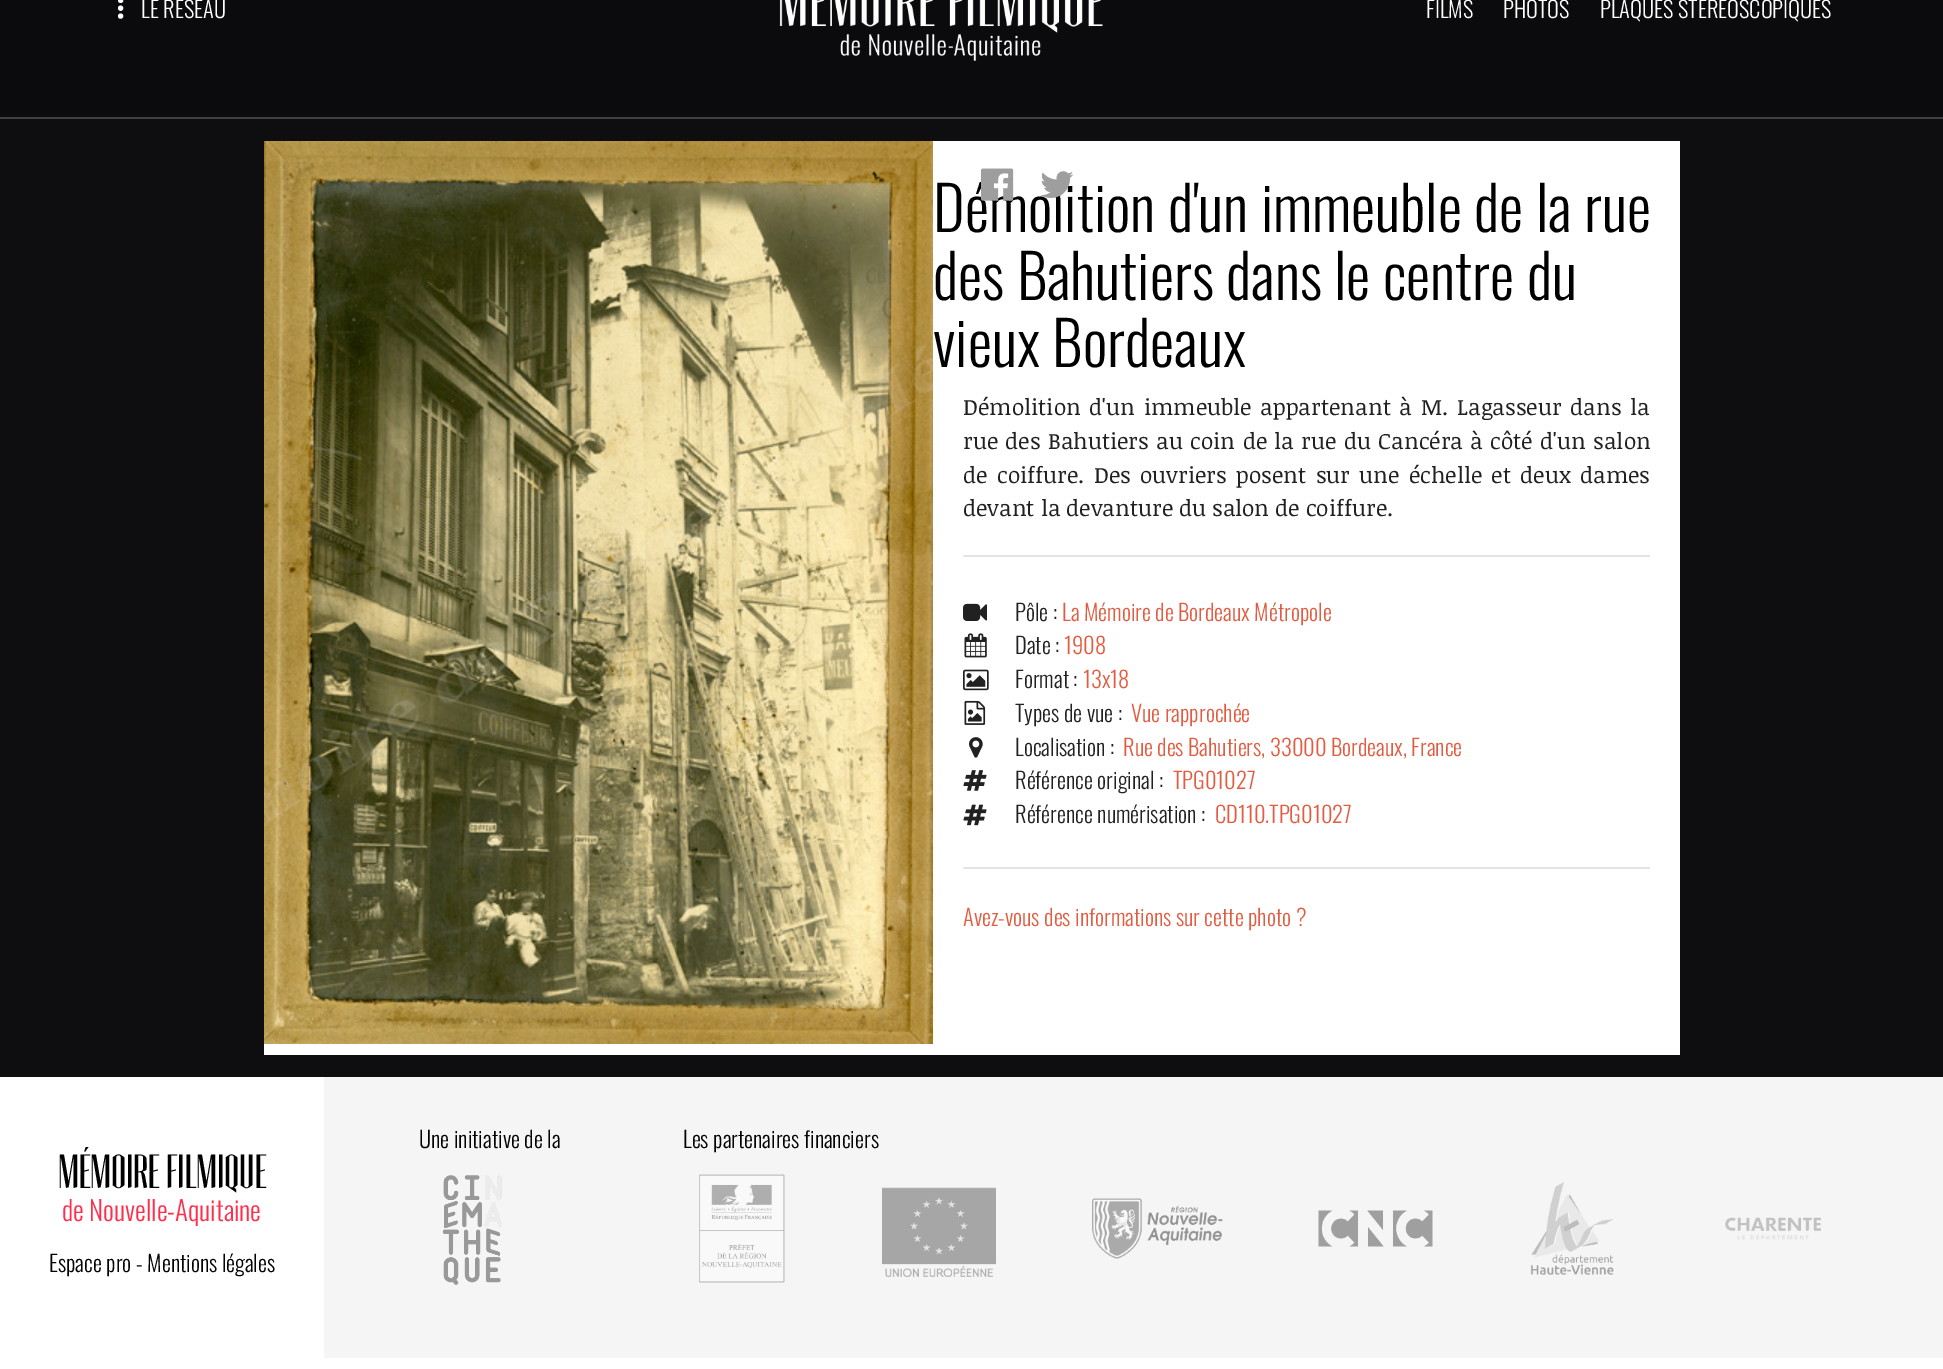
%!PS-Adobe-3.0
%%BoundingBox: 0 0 1943 1369
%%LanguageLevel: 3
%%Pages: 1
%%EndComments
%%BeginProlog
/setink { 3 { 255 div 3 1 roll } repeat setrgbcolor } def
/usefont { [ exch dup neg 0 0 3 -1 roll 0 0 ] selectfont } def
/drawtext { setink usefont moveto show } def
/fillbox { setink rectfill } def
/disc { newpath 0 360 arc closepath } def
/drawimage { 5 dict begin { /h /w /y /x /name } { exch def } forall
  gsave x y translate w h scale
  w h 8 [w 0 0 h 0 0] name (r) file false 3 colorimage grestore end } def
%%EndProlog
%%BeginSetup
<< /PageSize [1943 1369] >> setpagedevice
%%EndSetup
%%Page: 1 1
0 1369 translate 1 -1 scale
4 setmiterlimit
0 0 1943 1369 14 13 15 fillbox
0 0 1943 117 11 10 12 fillbox
0 117 1943 2 64 62 65 fillbox
255 255 255 setink
120.6 0.4 2.6 disc fill
(LE RÉSEAU) 141 18 /Oswald-Light 22.5 255 255 255 drawtext
120.6 8.2 2.6 disc fill
120.6 16.1 2.6 disc fill
(assets/img1.rgb) 779 0 324 61 drawimage
(FILMS) 1426 18 /Oswald-Light 22.5 255 255 255 drawtext
(PHOTOS) 1503 18 /Oswald-Light 22.5 255 255 255 drawtext
(PLAQUES STÉRÉOSCOPIQUES) 1600 18 /Oswald-Light 22.5 255 255 255 drawtext
264 141 1416 914 255 255 255 fillbox
(assets/img2.rgb) 264 141 669 903 drawimage
(Démolition d'un immeuble de la rue) 933 232 /Oswald-Light 60.75 0 0 0 drawtext
(assets/img3.rgb) 981 168 33 33 drawimage
(assets/img4.rgb) 1040 171 34 27 drawimage
(des Bahutiers dans le centre du) 933 300 /Oswald-Light 60.75 0 0 0 drawtext
(vieux Bordeaux) 933 367 /Oswald-Light 60.75 0 0 0 drawtext
/NoticiaText-Regular 22.5 usefont
33 33 33 setink
963 415 moveto 2.75 0 32 (Démolition d'un immeuble appartenant à M. Lagasseur dans la) widthshow
963 449 moveto 1.4 0 32 (rue des Bahutiers au coin de la rue du Cancéra à côté d'un salon) widthshow
963 483 moveto 3.4 0 32 (de coiffure. Des ouvriers posent sur une échelle et deux dames) widthshow
(devant la devanture du salon de coiffure.) 963 516 /NoticiaText-Regular 22.5 33 33 33 drawtext
963 555 687 2 228 228 228 fillbox
963 867 687 2 228 228 228 fillbox
(assets/img5.rgb) 963 603 24 18 drawimage
(Pôle :) 1015 621 /Oswald-Light 22.5 33 33 33 drawtext
(La Mémoire de Bordeaux Métropole) 1062 621 /Oswald-Light 22.5 226 92 66 drawtext
(assets/img6.rgb) 964 633 23 25 drawimage
(Date :) 1015 654 /Oswald-Light 22.5 33 33 33 drawtext
(1908) 1064 654 /Oswald-Light 22.5 226 92 66 drawtext
(assets/img7.rgb) 963 669 26 22 drawimage
(Format :) 1015 688 /Oswald-Light 22.5 33 33 33 drawtext
(13x18) 1083 688 /Oswald-Light 22.5 226 92 66 drawtext
(assets/img8.rgb) 964 700 22 25 drawimage
(Types de vue :) 1015 722 /Oswald-Light 22.5 33 33 33 drawtext
(Vue rapprochée) 1131 722 /Oswald-Light 22.5 226 92 66 drawtext
(assets/img9.rgb) 969 737 14 21 drawimage
(Localisation :) 1015 756 /Oswald-Light 22.5 33 33 33 drawtext
(Rue des Bahutiers, 33000 Bordeaux, France) 1123 756 /Oswald-Light 22.5 226 92 66 drawtext
(assets/img10.rgb) 963 770 24 21 drawimage
(Référence original :) 1015 789 /Oswald-Light 22.5 33 33 33 drawtext
(TPG01027) 1173 789 /Oswald-Light 22.5 226 92 66 drawtext
(assets/img11.rgb) 963 804 24 22 drawimage
(Référence numérisation :) 1015 823 /Oswald-Light 22.5 33 33 33 drawtext
(CD110.TPG01027) 1215 823 /Oswald-Light 22.5 226 92 66 drawtext
(Avez-vous des informations sur cette photo ?) 963 926 /Oswald-Light 22.5 226 92 66 drawtext
0 1077 1943 292 255 255 255 fillbox
324 1077 1619 281 245 245 245 fillbox
(Une initiative de la) 419 1148 /Oswald-Light 22.5 0 0 0 drawtext
(assets/img12.rgb) 442 1175 60 110 drawimage
(Les partenaires financiers) 683 1148 /Oswald-Light 22.5 0 0 0 drawtext
(assets/img13.rgb) 699 1174 86 109 drawimage
(assets/img14.rgb) 882 1187 114 90 drawimage
(assets/img15.rgb) 1092 1198 131 61 drawimage
(assets/img16.rgb) 1318 1210 115 37 drawimage
(assets/img17.rgb) 1530 1182 84 93 drawimage
(assets/img18.rgb) 1725 1217 96 23 drawimage
(MÉMOIRE FILMIQUE) 58 1188 /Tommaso-Regular 48 0 0 0 drawtext
(de Nouvelle-Aquitaine) 62 1221 /Oswald-Light 27 255 46 76 drawtext
(Espace pro - Mentions légales) 49 1272 /Oswald-Light 22.5 0 0 0 drawtext
showpage
%%EOF
